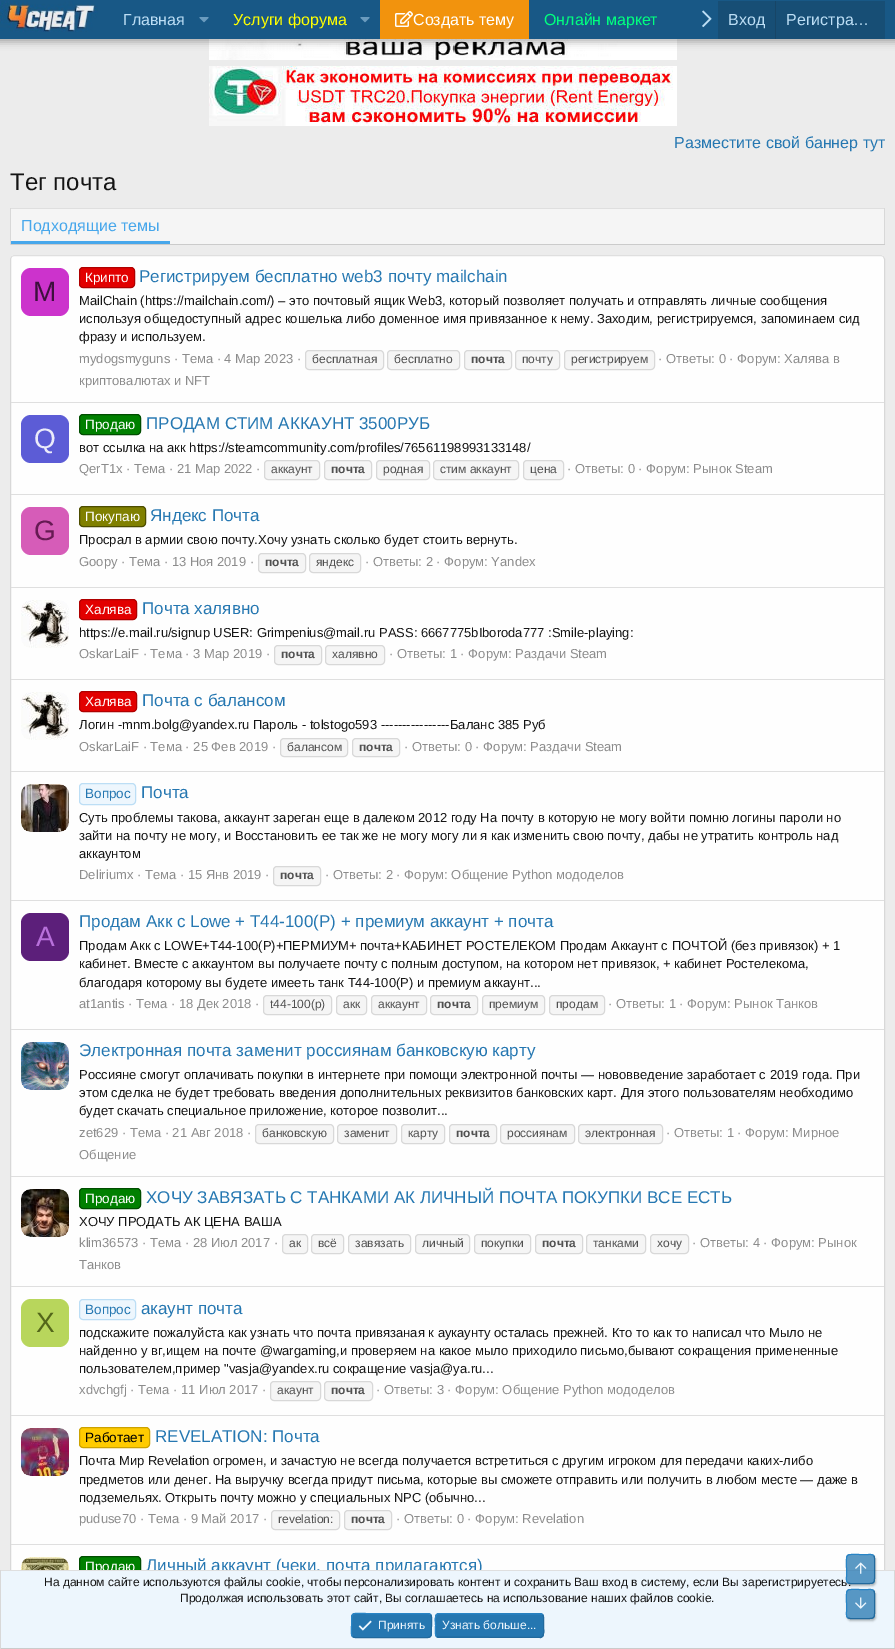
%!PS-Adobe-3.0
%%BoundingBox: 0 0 895 1649
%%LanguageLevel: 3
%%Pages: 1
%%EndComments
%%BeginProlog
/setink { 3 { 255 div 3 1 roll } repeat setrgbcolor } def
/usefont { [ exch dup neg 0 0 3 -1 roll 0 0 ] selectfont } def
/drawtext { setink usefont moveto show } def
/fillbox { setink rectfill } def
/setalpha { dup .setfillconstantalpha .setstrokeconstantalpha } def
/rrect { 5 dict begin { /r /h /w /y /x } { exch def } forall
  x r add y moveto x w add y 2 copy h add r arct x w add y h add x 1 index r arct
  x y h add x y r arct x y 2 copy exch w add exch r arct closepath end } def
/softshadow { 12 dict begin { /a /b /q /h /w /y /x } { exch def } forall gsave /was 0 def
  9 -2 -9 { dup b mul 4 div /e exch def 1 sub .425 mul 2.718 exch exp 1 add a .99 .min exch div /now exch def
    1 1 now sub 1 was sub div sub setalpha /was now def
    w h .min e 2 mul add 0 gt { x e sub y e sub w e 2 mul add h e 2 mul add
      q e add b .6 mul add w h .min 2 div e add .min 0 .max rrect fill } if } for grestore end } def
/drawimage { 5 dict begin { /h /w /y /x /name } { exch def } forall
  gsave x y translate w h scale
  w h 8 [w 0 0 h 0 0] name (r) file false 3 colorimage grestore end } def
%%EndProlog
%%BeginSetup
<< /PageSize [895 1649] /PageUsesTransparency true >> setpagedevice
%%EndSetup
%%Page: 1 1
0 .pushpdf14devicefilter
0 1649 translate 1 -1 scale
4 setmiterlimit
0 0 895 1649 236 236 236 fillbox
(assets/img5.rgb) 209 39 468 21 drawimage
0 0 0 setink
-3 -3 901 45 0 4 0.3 softshadow
0 0 895 39 24 88 134 fillbox
(assets/img1.rgb) 0 1 98 31 drawimage
(Главная) 123 25 /LiberationSans-Regular 16 188 222 245 drawtext
(assets/img2.rgb) 199 17 10 6 drawimage
(Услуги форума) 233 25 /LiberationSans-Regular 16 255 255 0 drawtext
(assets/img2.rgb) 360 17 10 6 drawimage
380 0 149 39 242 147 13 fillbox
(assets/img3.rgb) 395 11 18 16 drawimage
(Создать тему) 413 25 /LiberationSans-Regular 16 255 255 255 drawtext
(Онлайн маркет) 544 25 /LiberationSans-Regular 16 0 255 127 drawtext
(assets/img4.rgb) 702 10 10 18 drawimage
718 1 167 38 23 78 117 fillbox
(Вход) 728 25 /LiberationSans-Regular 16 188 222 245 drawtext
775 1 1 38 23 69 102 fillbox
(Регистра…) 786 25 /LiberationSans-Regular 16 188 222 245 drawtext
(assets/img6.rgb) 209 66 468 60 drawimage
(Разместите свой баннер тут) 674 148 /LiberationSans-Regular 16 37 119 177 drawtext
(Тег почта) 10 190 /LiberationSans-Regular 24 20 20 20 drawtext
11 209 873 35 245 245 245 fillbox
10 208 875 1 223 223 223 fillbox
884 208 1 37 216 216 216 fillbox
10 244 875 1 203 203 203 fillbox
10 208 1 37 216 216 216 fillbox
11 241 159 3 71 167 235 fillbox
(Подходящие темы) 21 231 /LiberationSans-Regular 16 71 167 235 drawtext
254 254 254 setink
10 255 875 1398 4 rrect fill
223 223 223 setink
11.5 256.5 moveto 14 255.5 lineto 881 255.5 lineto 883.5 256.5 lineto stroke
216 216 216 setink
883.5 256.5 moveto 884.5 259 lineto 884.5 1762 lineto 883.5 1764.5 lineto stroke
11.5 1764.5 moveto 10.5 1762 lineto 10.5 259 lineto 11.5 256.5 lineto stroke
204 51 204 setink
21 268 48 48 10 rrect fill
(M) 33 301 /LiberationSans-Regular 28 61 15 61 drawtext
226 0 0 setink
79.5 267.5 55 20 3.5 rrect gsave fill grestore
175 0 0 setink
stroke
(Крипто) 85 282 /LiberationSans-Regular 13.5 255 255 255 drawtext
(Регистрируем бесплатно web3 почту mailchain) 139 282 /LiberationSans-Regular 17 37 119 177 drawtext
(MailChain \(https://mailchain.com/\) – это почтовый ящик Web3, который позволяет получать и отправлять личные сообщения) 79 305 /LiberationSans-Regular 13 20 20 20 drawtext
(используя общедоступный адрес кошелька либо доменное имя привязанное к нему. Заходим, регистрируемся, запоминаем сид) 79 323 /LiberationSans-Regular 13 20 20 20 drawtext
(фразу и используем.) 79 341 /LiberationSans-Regular 13 20 20 20 drawtext
(mydogsmyguns · Тема · 4 Мар 2023 ·) 79 363 /LiberationSans-Regular 13 140 140 140 drawtext
245 245 245 setink
305.5 350.5 78 19 3.5 rrect gsave fill grestore
216 216 216 setink
stroke
(бесплатная) 312 363 /LiberationSans-Regular 12 80 80 80 drawtext
245 245 245 setink
387.5 350.5 72 19 3.5 rrect gsave fill grestore
216 216 216 setink
stroke
(бесплатно) 394 363 /LiberationSans-Regular 12 80 80 80 drawtext
245 245 245 setink
464.5 350.5 47 19 3.5 rrect gsave fill grestore
216 216 216 setink
stroke
(почта) 471 363 /LiberationSans-Bold 12 80 80 80 drawtext
245 245 245 setink
515.5 350.5 44 19 3.5 rrect gsave fill grestore
216 216 216 setink
stroke
(почту) 522 363 /LiberationSans-Regular 12 80 80 80 drawtext
245 245 245 setink
564.5 350.5 90 19 3.5 rrect gsave fill grestore
216 216 216 setink
stroke
(регистрируем) 571 363 /LiberationSans-Regular 12 80 80 80 drawtext
(· Ответы: 0 · Форум: Халява в) 658 363 /LiberationSans-Regular 13 140 140 140 drawtext
(криптовалютах и NFT) 79 385 /LiberationSans-Regular 13 140 140 140 drawtext
11 402 873 1 223 223 223 fillbox
92 92 214 setink
21 415 48 48 10 rrect fill
(Q) 34 448 /LiberationSans-Regular 28 235 235 250 drawtext
0 128 0 setink
79.5 414.5 61 20 3.5 rrect gsave fill grestore
0 77 0 setink
stroke
(Продаю) 85 429 /LiberationSans-Regular 13.5 255 255 255 drawtext
(ПРОДАМ СТИМ АККАУНТ 3500РУБ) 146 429 /LiberationSans-Regular 17 37 119 177 drawtext
(вот ссылка на акк https://steamcommunity.com/profiles/76561198993133148/) 79 452 /LiberationSans-Regular 13 20 20 20 drawtext
(QerT1x · Тема · 21 Мар 2022 ·) 79 473 /LiberationSans-Regular 13 140 140 140 drawtext
245 245 245 setink
264.5 460.5 55 19 3.5 rrect gsave fill grestore
216 216 216 setink
stroke
(аккаунт) 271 473 /LiberationSans-Regular 12 80 80 80 drawtext
245 245 245 setink
324.5 460.5 47 19 3.5 rrect gsave fill grestore
216 216 216 setink
stroke
(почта) 331 473 /LiberationSans-Bold 12 80 80 80 drawtext
245 245 245 setink
376.5 460.5 53 19 3.5 rrect gsave fill grestore
216 216 216 setink
stroke
(родная) 383 473 /LiberationSans-Regular 12 80 80 80 drawtext
245 245 245 setink
433.5 460.5 85 19 3.5 rrect gsave fill grestore
216 216 216 setink
stroke
(стим аккаунт) 440 473 /LiberationSans-Regular 12 80 80 80 drawtext
245 245 245 setink
523.5 460.5 40 19 3.5 rrect gsave fill grestore
216 216 216 setink
stroke
(цена) 530 473 /LiberationSans-Regular 12 80 80 80 drawtext
(· Ответы: 0 · Форум: Рынок Steam) 567 473 /LiberationSans-Regular 13 140 140 140 drawtext
11 494 873 1 223 223 223 fillbox
214 92 184 setink
21 507 48 48 10 rrect fill
(G) 34 540 /LiberationSans-Regular 28 102 26 83 drawtext
128 128 0 setink
79.5 506.5 66 20 3.5 rrect gsave fill grestore
77 77 0 setink
stroke
(Покупаю) 85 521 /LiberationSans-Regular 13.5 255 255 255 drawtext
(Яндекс Почта) 150 521 /LiberationSans-Regular 17 37 119 177 drawtext
(Просрал в армии свою почту.Хочу узнать сколько будет стоить вернуть.) 79 544 /LiberationSans-Regular 13 20 20 20 drawtext
(Goopy · Тема · 13 Ноя 2019 ·) 79 566 /LiberationSans-Regular 13 140 140 140 drawtext
245 245 245 setink
258.5 553.5 47 19 3.5 rrect gsave fill grestore
216 216 216 setink
stroke
(почта) 265 566 /LiberationSans-Bold 12 80 80 80 drawtext
245 245 245 setink
309.5 553.5 51 19 3.5 rrect gsave fill grestore
216 216 216 setink
stroke
(яндекс) 316 566 /LiberationSans-Regular 12 80 80 80 drawtext
(· Ответы: 2 · Форум: Yandex) 365 566 /LiberationSans-Regular 13 140 140 140 drawtext
11 587 873 1 223 223 223 fillbox
(assets/img7.rgb) 21 600 48 48 drawimage
226 0 0 setink
79.5 599.5 57 20 3.5 rrect gsave fill grestore
175 0 0 setink
stroke
(Халява) 85 614 /LiberationSans-Regular 13.5 255 255 255 drawtext
(Почта халявно) 142 614 /LiberationSans-Regular 17 37 119 177 drawtext
(https://e.mail.ru/signup USER: Grimpenius@mail.ru PASS: 6667775bIboroda777 :Smile-playing:) 79 637 /LiberationSans-Regular 13 20 20 20 drawtext
(OskarLaiF · Тема · 3 Мар 2019 ·) 79 658 /LiberationSans-Regular 13 140 140 140 drawtext
245 245 245 setink
274.5 645.5 47 19 3.5 rrect gsave fill grestore
216 216 216 setink
stroke
(почта) 281 658 /LiberationSans-Bold 12 80 80 80 drawtext
245 245 245 setink
325.5 645.5 59 19 3.5 rrect gsave fill grestore
216 216 216 setink
stroke
(халявно) 332 658 /LiberationSans-Regular 12 80 80 80 drawtext
(· Ответы: 1 · Форум: Раздачи Steam) 389 658 /LiberationSans-Regular 13 140 140 140 drawtext
11 679 873 1 223 223 223 fillbox
(assets/img7.rgb) 21 692 48 48 drawimage
226 0 0 setink
79.5 691.5 57 20 3.5 rrect gsave fill grestore
175 0 0 setink
stroke
(Халява) 85 706 /LiberationSans-Regular 13.5 255 255 255 drawtext
(Почта с балансом) 142 706 /LiberationSans-Regular 17 37 119 177 drawtext
(Логин -mnm.bolg@yandex.ru Пароль - tolstogo593 ----------------Баланс 385 Руб) 79 729 /LiberationSans-Regular 13 20 20 20 drawtext
(OskarLaiF · Тема · 25 Фев 2019 ·) 79 751 /LiberationSans-Regular 13 140 140 140 drawtext
245 245 245 setink
280.5 738.5 67 18 3.5 rrect gsave fill grestore
216 216 216 setink
stroke
(балансом) 287 751 /LiberationSans-Regular 12 80 80 80 drawtext
245 245 245 setink
352.5 738.5 47 18 3.5 rrect gsave fill grestore
216 216 216 setink
stroke
(почта) 359 751 /LiberationSans-Bold 12 80 80 80 drawtext
(· Ответы: 0 · Форум: Раздачи Steam) 404 751 /LiberationSans-Regular 13 140 140 140 drawtext
11 771 873 1 223 223 223 fillbox
(assets/img8.rgb) 21 784 48 48 drawimage
237 246 253 setink
79.5 783.5 56 21 3.5 rrect gsave fill grestore
188 222 245 setink
stroke
(Вопрос) 85 798 /LiberationSans-Regular 13.5 37 119 177 drawtext
(Почта) 141 798 /LiberationSans-Regular 17 37 119 177 drawtext
(Суть проблемы такова, аккаунт зареган еще в далеком 2012 году На почту в которую не могу войти помню логины пароли но) 79 822 /LiberationSans-Regular 13 20 20 20 drawtext
(зайти на почту не могу, и Восстановить ее так же не могу могу ли я как изменить свою почту, дабы не утратить контроль над) 79 840 /LiberationSans-Regular 13 20 20 20 drawtext
(аккаунтом) 79 858 /LiberationSans-Regular 13 20 20 20 drawtext
(Deliriumx · Тема · 15 Янв 2019 ·) 79 879 /LiberationSans-Regular 13 140 140 140 drawtext
245 245 245 setink
273.5 866.5 47 19 3.5 rrect gsave fill grestore
216 216 216 setink
stroke
(почта) 280 879 /LiberationSans-Bold 12 80 80 80 drawtext
(· Ответы: 2 · Форум: Общение Python мододелов) 325 879 /LiberationSans-Regular 13 140 140 140 drawtext
11 900 873 1 223 223 223 fillbox
92 31 122 setink
21 913 48 48 10 rrect fill
(A) 36 946 /LiberationSans-Regular 28 184 112 219 drawtext
(Продам Акк с Lowe + T44-100\(P\) + премиум аккаунт + почта) 79 927 /LiberationSans-Regular 17 37 119 177 drawtext
(Продам Акк с LOWE+T44-100\(P\)+ПЕРМИУМ+ почта+КАБИНЕТ РОСТЕЛЕКОМ Продам Аккаунт с ПОЧТОЙ \(без привязок\) + 1) 79 950 /LiberationSans-Regular 13 20 20 20 drawtext
(кабинет. Вместе с аккаунтом вы получаете почту с полным доступом, на котором нет привязок, + кабинет Ростелекома,) 79 968 /LiberationSans-Regular 13 20 20 20 drawtext
(благодаря которому вы будете имееть танк Т44-100\(Р\) и премиум аккаунт...) 79 987 /LiberationSans-Regular 13 20 20 20 drawtext
(at1antis · Тема · 18 Дек 2018 ·) 79 1008 /LiberationSans-Regular 13 140 140 140 drawtext
245 245 245 setink
263.5 995.5 68 19 3.5 rrect gsave fill grestore
216 216 216 setink
stroke
(t44-100\(p\)) 270 1008 /LiberationSans-Regular 12 80 80 80 drawtext
245 245 245 setink
336.5 995.5 30 19 3.5 rrect gsave fill grestore
216 216 216 setink
stroke
(акк) 343 1008 /LiberationSans-Regular 12 80 80 80 drawtext
245 245 245 setink
371.5 995.5 55 19 3.5 rrect gsave fill grestore
216 216 216 setink
stroke
(аккаунт) 378 1008 /LiberationSans-Regular 12 80 80 80 drawtext
245 245 245 setink
430.5 995.5 47 19 3.5 rrect gsave fill grestore
216 216 216 setink
stroke
(почта) 437 1008 /LiberationSans-Bold 12 80 80 80 drawtext
245 245 245 setink
482.5 995.5 62 19 3.5 rrect gsave fill grestore
216 216 216 setink
stroke
(премиум) 489 1008 /LiberationSans-Regular 12 80 80 80 drawtext
245 245 245 setink
549.5 995.5 55 19 3.5 rrect gsave fill grestore
216 216 216 setink
stroke
(продам) 556 1008 /LiberationSans-Regular 12 80 80 80 drawtext
(· Ответы: 1 · Форум: Рынок Танков) 608 1008 /LiberationSans-Regular 13 140 140 140 drawtext
11 1029 873 1 223 223 223 fillbox
(assets/img9.rgb) 21 1042 48 48 drawimage
(Электронная почта заменит россиянам банковскую карту) 79 1056 /LiberationSans-Regular 17 37 119 177 drawtext
(Россияне смогут оплачивать покупки в интернете при помощи электронной почты — нововведение заработает с 2019 года. При) 79 1079 /LiberationSans-Regular 13 20 20 20 drawtext
(этом сделка не будет требовать введения дополнительных реквизитов банковских карт. Для этого пользователям необходимо) 79 1097 /LiberationSans-Regular 13 20 20 20 drawtext
(будет скачать специальное приложение, которое позволит...) 79 1115 /LiberationSans-Regular 13 20 20 20 drawtext
(zet629 · Тема · 21 Авг 2018 ·) 79 1137 /LiberationSans-Regular 13 140 140 140 drawtext
245 245 245 setink
255.5 1124.5 78 19 3.5 rrect gsave fill grestore
216 216 216 setink
stroke
(банковскую) 262 1137 /LiberationSans-Regular 12 80 80 80 drawtext
245 245 245 setink
337.5 1124.5 59 19 3.5 rrect gsave fill grestore
216 216 216 setink
stroke
(заменит) 344 1137 /LiberationSans-Regular 12 80 80 80 drawtext
245 245 245 setink
401.5 1124.5 43 19 3.5 rrect gsave fill grestore
216 216 216 setink
stroke
(карту) 408 1137 /LiberationSans-Regular 12 80 80 80 drawtext
245 245 245 setink
449.5 1124.5 47 19 3.5 rrect gsave fill grestore
216 216 216 setink
stroke
(почта) 456 1137 /LiberationSans-Bold 12 80 80 80 drawtext
245 245 245 setink
500.5 1124.5 74 19 3.5 rrect gsave fill grestore
216 216 216 setink
stroke
(россиянам) 507 1137 /LiberationSans-Regular 12 80 80 80 drawtext
245 245 245 setink
578.5 1124.5 84 19 3.5 rrect gsave fill grestore
216 216 216 setink
stroke
(электронная) 585 1137 /LiberationSans-Regular 12 80 80 80 drawtext
(· Ответы: 1 · Форум: Мирное) 666 1137 /LiberationSans-Regular 13 140 140 140 drawtext
(Общение) 79 1159 /LiberationSans-Regular 13 140 140 140 drawtext
11 1176 873 1 223 223 223 fillbox
(assets/img10.rgb) 21 1189 48 48 drawimage
0 128 0 setink
79.5 1188.5 61 20 3.5 rrect gsave fill grestore
0 77 0 setink
stroke
(Продаю) 85 1203 /LiberationSans-Regular 13.5 255 255 255 drawtext
(ХОЧУ ЗАВЯЗАТЬ С ТАНКАМИ АК ЛИЧНЫЙ ПОЧТА ПОКУПКИ ВСЕ ЕСТЬ) 146 1203 /LiberationSans-Regular 17 37 119 177 drawtext
(ХОЧУ ПРОДАТЬ АК ЦЕНА ВАША) 79 1226 /LiberationSans-Regular 13 20 20 20 drawtext
(klim36573 · Тема · 28 Июл 2017 ·) 79 1247 /LiberationSans-Regular 13 140 140 140 drawtext
245 245 245 setink
282.5 1234.5 25 19 3.5 rrect gsave fill grestore
216 216 216 setink
stroke
(ак) 289 1247 /LiberationSans-Regular 12 80 80 80 drawtext
245 245 245 setink
311.5 1234.5 32 19 3.5 rrect gsave fill grestore
216 216 216 setink
stroke
(всё) 318 1247 /LiberationSans-Regular 12 80 80 80 drawtext
245 245 245 setink
348.5 1234.5 62 19 3.5 rrect gsave fill grestore
216 216 216 setink
stroke
(завязать) 355 1247 /LiberationSans-Regular 12 80 80 80 drawtext
245 245 245 setink
415.5 1234.5 54 19 3.5 rrect gsave fill grestore
216 216 216 setink
stroke
(личный) 422 1247 /LiberationSans-Regular 12 80 80 80 drawtext
245 245 245 setink
474.5 1234.5 56 19 3.5 rrect gsave fill grestore
216 216 216 setink
stroke
(покупки) 481 1247 /LiberationSans-Regular 12 80 80 80 drawtext
245 245 245 setink
535.5 1234.5 47 19 3.5 rrect gsave fill grestore
216 216 216 setink
stroke
(почта) 542 1247 /LiberationSans-Bold 12 80 80 80 drawtext
245 245 245 setink
586.5 1234.5 59 19 3.5 rrect gsave fill grestore
216 216 216 setink
stroke
(танками) 593 1247 /LiberationSans-Regular 12 80 80 80 drawtext
245 245 245 setink
650.5 1234.5 38 19 3.5 rrect gsave fill grestore
216 216 216 setink
stroke
(хочу) 657 1247 /LiberationSans-Regular 12 80 80 80 drawtext
(· Ответы: 4 · Форум: Рынок) 692 1247 /LiberationSans-Regular 13 140 140 140 drawtext
(Танков) 79 1269 /LiberationSans-Regular 13 140 140 140 drawtext
11 1286 873 1 223 223 223 fillbox
184 214 92 setink
21 1299 48 48 10 rrect fill
(X) 36 1332 /LiberationSans-Regular 28 83 102 26 drawtext
237 246 253 setink
79.5 1299.5 56 20 3.5 rrect gsave fill grestore
188 222 245 setink
stroke
(Вопрос) 85 1314 /LiberationSans-Regular 13.5 37 119 177 drawtext
(акаунт почта) 141 1314 /LiberationSans-Regular 17 37 119 177 drawtext
(подскажите пожалуйста как узнать что почта привязаная к аукаунту осталась прежней. Кто то как то написал что Мыло не) 79 1337 /LiberationSans-Regular 13 20 20 20 drawtext
(найденно у вг,ищем на почте @wargaming,и проверяем на какое мыло приходило письмо,бывают сокращения примененные) 79 1355 /LiberationSans-Regular 13 20 20 20 drawtext
(пользователем,пример "vasja@yandex.ru сокращение vasja@ya.ru...) 79 1373 /LiberationSans-Regular 13 20 20 20 drawtext
(xdvchgfj · Тема · 11 Июл 2017 ·) 79 1394 /LiberationSans-Regular 13 140 140 140 drawtext
245 245 245 setink
270.5 1381.5 50 19 3.5 rrect gsave fill grestore
216 216 216 setink
stroke
(акаунт) 277 1394 /LiberationSans-Regular 12 80 80 80 drawtext
245 245 245 setink
324.5 1381.5 48 19 3.5 rrect gsave fill grestore
216 216 216 setink
stroke
(почта) 331 1394 /LiberationSans-Bold 12 80 80 80 drawtext
(· Ответы: 3 · Форум: Общение Python мододелов) 376 1394 /LiberationSans-Regular 13 140 140 140 drawtext
11 1415 873 1 223 223 223 fillbox
(assets/img11.rgb) 21 1428 48 48 drawimage
255 203 0 setink
79.5 1427.5 70 20 3.5 rrect gsave fill grestore
204 162 0 setink
stroke
(Работает) 85 1442 /LiberationSans-Regular 13.5 0 0 0 drawtext
(REVELATION: Почта) 155 1442 /LiberationSans-Regular 17 37 119 177 drawtext
(Почта Мир Revelation огромен, и зачастую не всегда получается встретиться с другим игроком для передачи каких-либо) 79 1465 /LiberationSans-Regular 13 20 20 20 drawtext
(предметов или денег. На выручку всегда придут письма, которые вы сможете отправить или получить в любом месте — даже в) 79 1484 /LiberationSans-Regular 13 20 20 20 drawtext
(подземельях. Открыть почту можно у специальных NPC \(обычно...) 79 1502 /LiberationSans-Regular 13 20 20 20 drawtext
(puduse70 · Тема · 9 Май 2017 ·) 79 1523 /LiberationSans-Regular 13 140 140 140 drawtext
245 245 245 setink
271.5 1510.5 68 19 3.5 rrect gsave fill grestore
216 216 216 setink
stroke
(revelation:) 278 1523 /LiberationSans-Regular 12 80 80 80 drawtext
245 245 245 setink
344.5 1510.5 47 19 3.5 rrect gsave fill grestore
216 216 216 setink
stroke
(почта) 351 1523 /LiberationSans-Bold 12 80 80 80 drawtext
(· Ответы: 0 · Форум: Revelation) 396 1523 /LiberationSans-Regular 13 140 140 140 drawtext
11 1544 873 1 223 223 223 fillbox
(assets/img12.rgb) 21 1557 48 13 drawimage
0 128 0 setink
79.5 1556.5 61 20 3.5 rrect gsave fill grestore
0 77 0 setink
stroke
(Продаю) 85 1571 /LiberationSans-Regular 13.5 255 255 255 drawtext
(Личный аккаунт \(чеки, почта прилагаются\)) 146 1571 /LiberationSans-Regular 17 37 119 177 drawtext
1 1571 893 77 237 246 253 fillbox
0 1570 895 1 223 223 223 fillbox
894 1570 1 79 216 216 216 fillbox
0 1648 895 1 203 203 203 fillbox
0 1570 1 79 216 216 216 fillbox
(На данном сайте используются файлы cookie, чтобы персонализировать контент и сохранить Ваш вход в систему, если Вы зарегистрируетесь.) 44 1586 /LiberationSans-Regular 12 20 20 20 drawtext
(Продолжая использовать этот сайт, Вы соглашаетесь на использование наших файлов cookie.) 180 1602 /LiberationSans-Regular 12 20 20 20 drawtext
37 119 177 setink
351 1613 81 25 4 rrect fill
33 105 156 setink
430.5 1614.5 moveto 432.5 1617 431.5 1623 431.5 1625.5 curveto 431.5 1640 432 1637.5 416 1637.5 curveto 355 1637.5 lineto 352.5 1636.5 lineto stroke
41 133 198 setink
352.5 1636.5 moveto 350.5 1634 351.5 1628 351.5 1625.5 curveto 351.5 1611 351 1613.5 367 1613.5 curveto 428 1613.5 lineto 430.5 1614.5 lineto stroke
(assets/img13.rgb) 358 1620 14 11 drawimage
(Принять) 378 1629 /LiberationSans-Regular 12 237 246 253 drawtext
37 119 177 setink
435 1613 109 25 4 rrect fill
33 105 156 setink
542.5 1614.5 moveto 544.5 1617 543.5 1623 543.5 1625.5 curveto 543.5 1628 545.5 1637.5 540 1637.5 curveto 437.5 1637 lineto 436.5 1636.5 lineto stroke
41 133 198 setink
436.5 1636.5 moveto 434.5 1634 435.5 1628 435.5 1625.5 curveto 435.5 1623 433.5 1613.5 439 1613.5 curveto 541.5 1614 lineto 542.5 1614.5 lineto stroke
(Узнать больше...) 442 1629 /LiberationSans-Regular 12 237 246 253 drawtext
gsave
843 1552 moveto 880 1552 lineto 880 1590 lineto 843 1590 lineto closepath 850 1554 moveto 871 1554 lineto 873 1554 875 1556 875 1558 curveto 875 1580 lineto 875 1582 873 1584 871 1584 curveto 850 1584 lineto 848 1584 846 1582 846 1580 curveto 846 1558 lineto 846 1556 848 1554 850 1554 curveto closepath eoclip newpath
0 0 0 setink
847 1556 29 30 4 1 0.25 softshadow
grestore
0.75 setalpha
37 119 177 setink
846 1554 29 30 4 rrect fill
1 setalpha
33 105 156 setink
873.5 1555.5 moveto 875 1557 874.5 1560 874.5 1561.5 curveto 874.5 1569 lineto 874.5 1585.5 876.5 1583.5 860.5 1583.5 curveto 853.5 1583.5 lineto 851.5 1583.5 849 1584 847.5 1582.5 curveto stroke
41 133 198 setink
847.5 1582.5 moveto 846 1581 846.5 1578 846.5 1576.5 curveto 846.5 1569 lineto 846.5 1552.5 844.5 1554.5 860.5 1554.5 curveto 867.5 1554.5 lineto 869.5 1554.5 872 1554 873.5 1555.5 curveto stroke
(assets/img14.rgb) 855 1562 12 12 drawimage
gsave
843 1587 moveto 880 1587 lineto 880 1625 lineto 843 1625 lineto closepath 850 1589 moveto 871 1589 lineto 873 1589 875 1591 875 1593 curveto 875 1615 lineto 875 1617 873 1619 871 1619 curveto 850 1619 lineto 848 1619 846 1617 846 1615 curveto 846 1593 lineto 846 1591 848 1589 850 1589 curveto closepath eoclip newpath
0 0 0 setink
847 1591 29 30 4 1 0.25 softshadow
grestore
0.75 setalpha
37 119 177 setink
846 1589 29 30 4 rrect fill
1 setalpha
33 105 156 setink
873.5 1590.5 moveto 875 1592 874.5 1595 874.5 1596.5 curveto 874.5 1604 lineto 874.5 1620.5 876.5 1618.5 860.5 1618.5 curveto 853.5 1618.5 lineto 851.5 1618.5 849 1619 847.5 1617.5 curveto stroke
41 133 198 setink
847.5 1617.5 moveto 846 1616 846.5 1613 846.5 1611.5 curveto 846.5 1604 lineto 846.5 1587.5 844.5 1589.5 860.5 1589.5 curveto 867.5 1589.5 lineto 869.5 1589.5 872 1589 873.5 1590.5 curveto stroke
(assets/img15.rgb) 855 1597 12 12 drawimage
.poppdf14devicefilter showpage
%%EOF
